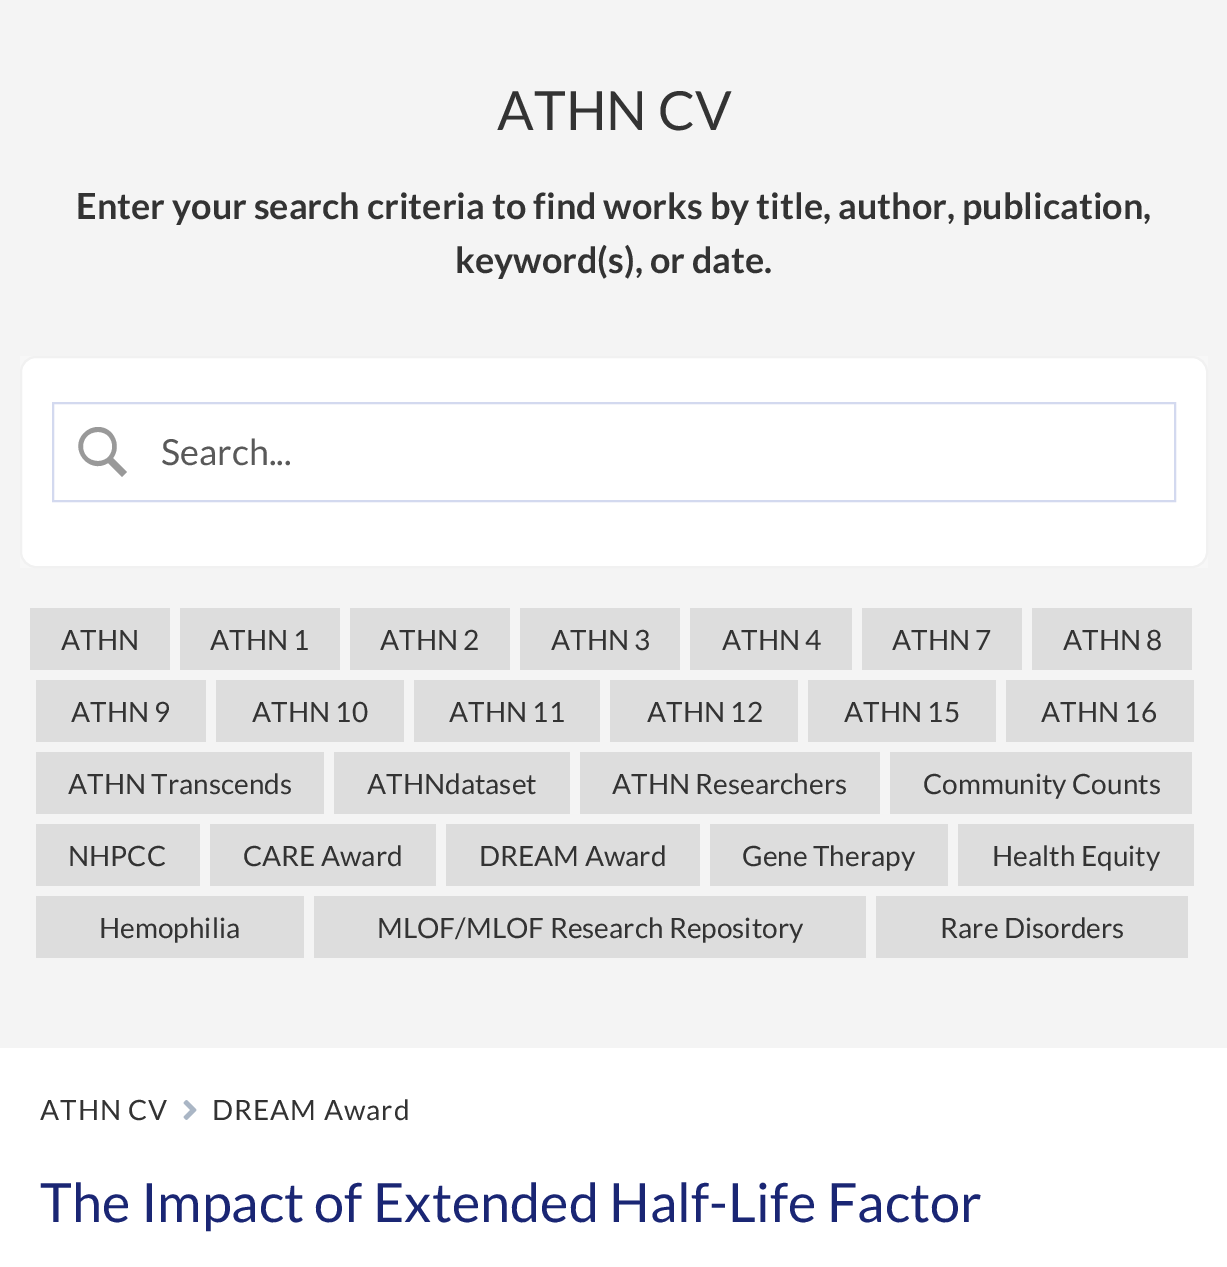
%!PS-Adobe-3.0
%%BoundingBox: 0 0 1227 1267
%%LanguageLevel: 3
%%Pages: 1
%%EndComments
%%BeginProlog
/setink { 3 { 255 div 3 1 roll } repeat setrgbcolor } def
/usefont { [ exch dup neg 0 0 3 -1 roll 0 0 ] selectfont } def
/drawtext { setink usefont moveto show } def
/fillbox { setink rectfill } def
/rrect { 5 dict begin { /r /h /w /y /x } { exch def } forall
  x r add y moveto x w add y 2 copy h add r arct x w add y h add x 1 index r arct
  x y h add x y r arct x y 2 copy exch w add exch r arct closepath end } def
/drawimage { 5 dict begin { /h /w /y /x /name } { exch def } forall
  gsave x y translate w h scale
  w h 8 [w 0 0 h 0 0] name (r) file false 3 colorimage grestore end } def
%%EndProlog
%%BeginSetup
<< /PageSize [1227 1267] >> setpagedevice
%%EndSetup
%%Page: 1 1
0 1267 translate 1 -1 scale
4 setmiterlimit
0 0 1227 1267 255 255 255 fillbox
0 0 1227 1048 244 244 244 fillbox
(ATHN CV) 497 130 /Lato-Regular 54 51 51 51 drawtext
(Enter your search criteria to find works by title, author, publication,) 76 219 /Lato-Bold 36 51 51 51 drawtext
(keyword\(s\), or date.) 455 273 /Lato-Bold 36 51 51 51 drawtext
20 356 1188 212 247 247 247 fillbox
255 255 255 setink
21 357 1186 210 15 rrect gsave fill grestore
241 241 241 setink
2 setlinewidth
stroke
211 217 239 setink
53 403 1122 98 rectstroke
153 153 153 setink
98 427 moveto 93 427 88 429 84 433 curveto 68 449 89 475 108 463 curveto 122 477 lineto 127 472 lineto 113 458 lineto 122 446 114 427 98 427 curveto closepath 98 432 moveto 117 432 117 461 98 461 curveto 78 461 78 432 98 432 curveto closepath fill
(Search...) 161 465 /Lato-Regular 36 89 89 89 drawtext
30 608 140 62 221 221 221 fillbox
(ATHN) 61 650 /Lato-Regular 28 51 51 51 drawtext
180 608 160 62 221 221 221 fillbox
(ATHN 1) 210 650 /Lato-Regular 28 51 51 51 drawtext
350 608 160 62 221 221 221 fillbox
(ATHN 2) 380 650 /Lato-Regular 28 51 51 51 drawtext
520 608 160 62 221 221 221 fillbox
(ATHN 3) 551 650 /Lato-Regular 28 51 51 51 drawtext
690 608 162 62 221 221 221 fillbox
(ATHN 4) 722 650 /Lato-Regular 28 51 51 51 drawtext
862 608 160 62 221 221 221 fillbox
(ATHN 7) 892 650 /Lato-Regular 28 51 51 51 drawtext
1032 608 160 62 221 221 221 fillbox
(ATHN 8) 1063 650 /Lato-Regular 28 51 51 51 drawtext
36 680 170 62 221 221 221 fillbox
(ATHN 9) 71 722 /Lato-Regular 28 51 51 51 drawtext
216 680 188 62 221 221 221 fillbox
(ATHN 10) 252 722 /Lato-Regular 28 51 51 51 drawtext
414 680 186 62 221 221 221 fillbox
(ATHN 11) 449 722 /Lato-Regular 28 51 51 51 drawtext
610 680 188 62 221 221 221 fillbox
(ATHN 12) 647 722 /Lato-Regular 28 51 51 51 drawtext
808 680 188 62 221 221 221 fillbox
(ATHN 15) 844 722 /Lato-Regular 28 51 51 51 drawtext
1006 680 188 62 221 221 221 fillbox
(ATHN 16) 1041 722 /Lato-Regular 28 51 51 51 drawtext
36 752 288 62 221 221 221 fillbox
(ATHN Transcends) 68 794 /Lato-Regular 28 51 51 51 drawtext
334 752 236 62 221 221 221 fillbox
(ATHNdataset) 367 794 /Lato-Regular 28 51 51 51 drawtext
580 752 300 62 221 221 221 fillbox
(ATHN Researchers) 612 794 /Lato-Regular 28 51 51 51 drawtext
890 752 302 62 221 221 221 fillbox
(Community Counts) 923 794 /Lato-Regular 28 51 51 51 drawtext
36 824 164 62 221 221 221 fillbox
(NHPCC) 68 866 /Lato-Regular 28 51 51 51 drawtext
210 824 226 62 221 221 221 fillbox
(CARE Award) 243 866 /Lato-Regular 28 51 51 51 drawtext
446 824 254 62 221 221 221 fillbox
(DREAM Award) 479 866 /Lato-Regular 28 51 51 51 drawtext
710 824 238 62 221 221 221 fillbox
(Gene Therapy) 742 866 /Lato-Regular 28 51 51 51 drawtext
958 824 236 62 221 221 221 fillbox
(Health Equity) 992 866 /Lato-Regular 28 51 51 51 drawtext
36 896 268 62 221 221 221 fillbox
(Hemophilia) 99 938 /Lato-Regular 28 51 51 51 drawtext
314 896 552 62 221 221 221 fillbox
(MLOF/MLOF Research Repository) 377 938 /Lato-Regular 28 51 51 51 drawtext
876 896 312 62 221 221 221 fillbox
(Rare Disorders) 940 938 /Lato-Regular 28 51 51 51 drawtext
40 1120 moveto 1 0 (ATHN CV) ashow
(assets/img1.rgb) 183 1100 14 20 drawimage
212 1120 moveto 1 0 (DREAM Award) ashow
(The Impact of Extended Half-Life Factor) 40 1222 /Lato-Regular 54 26 38 116 drawtext
showpage
%%EOF
